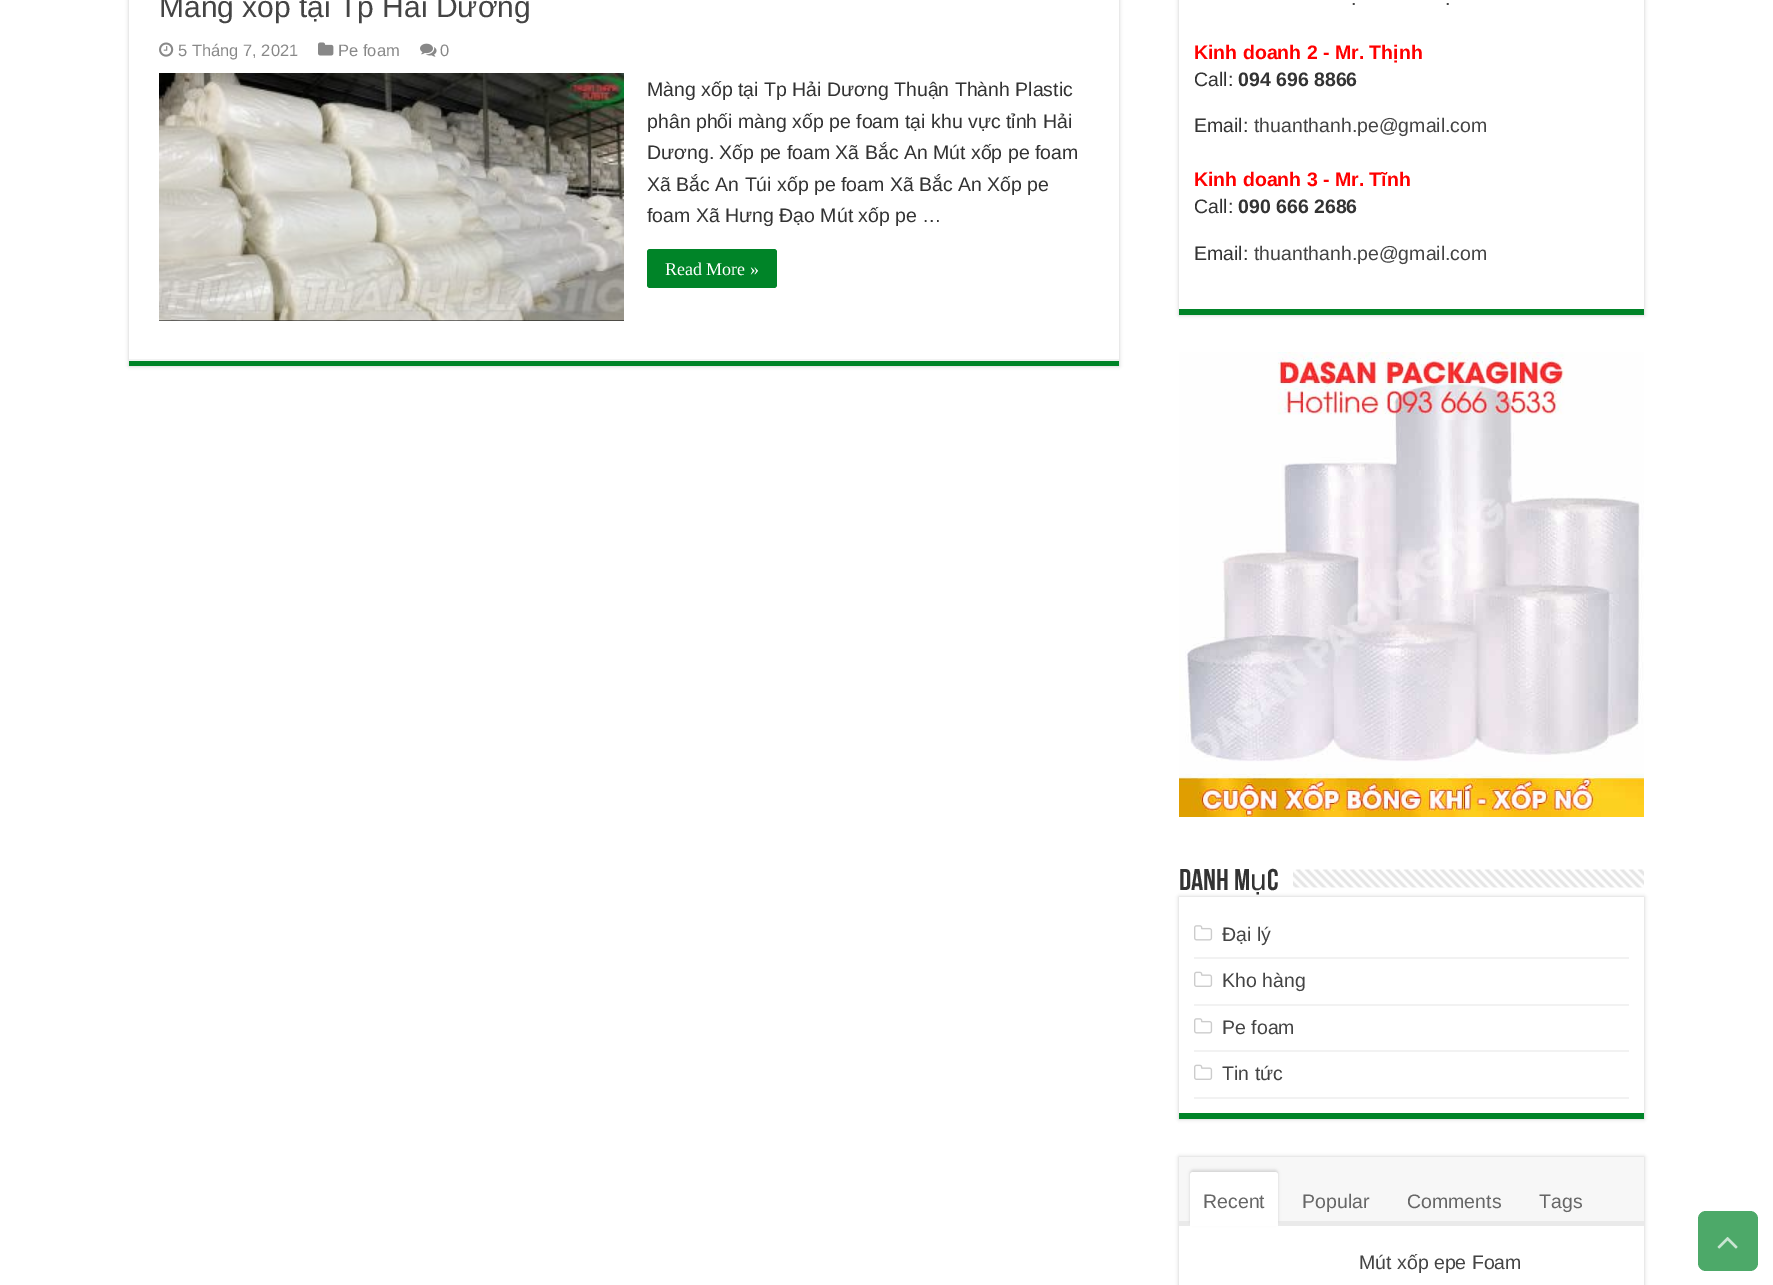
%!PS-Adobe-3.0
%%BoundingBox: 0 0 1773 1285
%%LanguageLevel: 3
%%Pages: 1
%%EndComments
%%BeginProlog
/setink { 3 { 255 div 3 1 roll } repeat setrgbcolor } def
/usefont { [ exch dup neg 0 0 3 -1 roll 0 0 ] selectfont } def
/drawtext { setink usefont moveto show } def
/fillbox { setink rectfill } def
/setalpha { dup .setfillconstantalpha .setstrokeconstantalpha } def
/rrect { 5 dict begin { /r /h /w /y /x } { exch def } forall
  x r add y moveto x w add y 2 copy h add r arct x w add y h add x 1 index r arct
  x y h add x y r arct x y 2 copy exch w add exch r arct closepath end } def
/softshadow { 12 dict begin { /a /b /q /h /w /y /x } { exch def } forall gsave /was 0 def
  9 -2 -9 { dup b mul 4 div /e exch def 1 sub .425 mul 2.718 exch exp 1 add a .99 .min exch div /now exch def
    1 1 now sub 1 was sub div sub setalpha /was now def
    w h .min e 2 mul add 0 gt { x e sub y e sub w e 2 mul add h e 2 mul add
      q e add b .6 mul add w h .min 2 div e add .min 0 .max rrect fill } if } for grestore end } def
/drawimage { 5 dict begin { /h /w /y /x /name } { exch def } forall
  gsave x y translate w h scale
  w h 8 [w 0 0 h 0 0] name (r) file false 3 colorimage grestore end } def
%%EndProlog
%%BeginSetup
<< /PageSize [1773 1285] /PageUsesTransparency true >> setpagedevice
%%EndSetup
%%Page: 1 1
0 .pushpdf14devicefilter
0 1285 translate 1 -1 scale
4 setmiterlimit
0 0 1773 1285 255 255 255 fillbox
gsave
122 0 moveto 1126 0 lineto 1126 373 lineto 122 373 lineto closepath 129 -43 moveto 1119 -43 lineto 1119 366 lineto 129 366 lineto closepath eoclip newpath
202 202 202 setink
129 -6 990 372 0 2 1 softshadow
grestore
129 361 990 5 0 132 40 fillbox
129 359 990 2 242 242 242 fillbox
(Màng xốp tại Tp Hải Dương) 159 17 /LiberationSans-Regular 30 68 68 68 drawtext
(assets/img1.rgb) 159 42 15 15 drawimage
(5 Tháng 7, 2021) 178 56 /LiberationSans-Regular 16.5 136 136 136 drawtext
(assets/img2.rgb) 318 42 16 14 drawimage
(Pe foam) 338 56 /LiberationSans-Regular 16.5 136 136 136 drawtext
(assets/img3.rgb) 420 43 17 14 drawimage
(0) 440 56 /LiberationSans-Regular 16.5 136 136 136 drawtext
159 320 465 1 0 0 0 fillbox
(assets/img4.rgb) 159 73 465 248 drawimage
(Màng xốp tại Tp Hải Dương Thuận Thành Plastic) 647 96 /LiberationSans-Regular 19.5 51 51 51 drawtext
(phân phối màng xốp pe foam tại khu vực tỉnh Hải) 647 128 /LiberationSans-Regular 19.5 51 51 51 drawtext
(Dương. Xốp pe foam Xã Bắc An Mút xốp pe foam) 647 159 /LiberationSans-Regular 19.5 51 51 51 drawtext
(Xã Bắc An Túi xốp pe foam Xã Bắc An Xốp pe) 647 191 /LiberationSans-Regular 19.5 51 51 51 drawtext
(foam Xã Hưng Đạo Mút xốp pe …) 647 222 /LiberationSans-Regular 19.5 51 51 51 drawtext
0 132 40 setink
647 249 130 39 3 rrect fill
(Read More ») 665 275 /LiberationSerif-Regular 18 255 255 255 drawtext
gsave
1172 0 moveto 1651 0 lineto 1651 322 lineto 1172 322 lineto closepath 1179 -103 moveto 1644 -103 lineto 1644 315 lineto 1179 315 lineto closepath eoclip newpath
202 202 202 setink
1179 -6 465 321 0 2 1 softshadow
grestore
1179 309 465 6 0 132 40 fillbox
(.) 1351 5 /LiberationSans-Regular 19.5 68 68 68 drawtext
(.) 1445 5 /LiberationSans-Regular 19.5 68 68 68 drawtext
(Kinh doanh 2 - Mr. Thịnh) 1194 59 /LiberationSans-Bold 19.5 255 0 0 drawtext
(Call:) 1194 86 /LiberationSans-Regular 19.5 51 51 51 drawtext
(094 696 8866) 1238 86 /LiberationSans-Bold 19.5 51 51 51 drawtext
(Email:) 1194 132 /LiberationSans-Regular 19.5 51 51 51 drawtext
(thuanthanh.pe@gmail.com) 1254 132 /LiberationSans-Regular 19.5 68 68 68 drawtext
(Kinh doanh 3 - Mr. Tĩnh) 1194 186 /LiberationSans-Bold 19.5 255 0 0 drawtext
(Call:) 1194 213 /LiberationSans-Regular 19.5 51 51 51 drawtext
(090 666 2686) 1238 213 /LiberationSans-Bold 19.5 51 51 51 drawtext
(Email:) 1194 260 /LiberationSans-Regular 19.5 51 51 51 drawtext
(thuanthanh.pe@gmail.com) 1254 260 /LiberationSans-Regular 19.5 68 68 68 drawtext
(assets/img5.rgb) 1179 352 465 465 drawimage
(Danh m) 1179 890 /BebasNeue-Bold 30 51 51 51 drawtext
gsave
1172 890 moveto 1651 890 lineto 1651 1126 lineto 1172 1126 lineto closepath 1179 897 moveto 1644 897 lineto 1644 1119 lineto 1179 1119 lineto closepath eoclip newpath
202 202 202 setink
1179 897 465 222 0 2 1 softshadow
grestore
(ụ) 1250 890 /LiberationSans-Regular 30 51 51 51 drawtext
(c) 1267 890 /BebasNeue-Bold 30 51 51 51 drawtext
(assets/img6.rgb) 1293 869 351 19 drawimage
1179 1113 465 6 0 132 40 fillbox
1194 957 435 2 242 242 242 fillbox
(assets/img7.rgb) 1194 925 19 16 drawimage
(Đại lý) 1222 941 /LiberationSans-Regular 19.5 68 68 68 drawtext
1194 1004 435 2 242 242 242 fillbox
(assets/img8.rgb) 1194 971 19 16 drawimage
(Kho hàng) 1222 987 /LiberationSans-Regular 19.5 68 68 68 drawtext
1194 1050 435 2 242 242 242 fillbox
(assets/img7.rgb) 1194 1018 19 16 drawimage
(Pe foam) 1222 1034 /LiberationSans-Regular 19.5 68 68 68 drawtext
1194 1097 435 2 242 242 242 fillbox
(assets/img8.rgb) 1194 1064 19 16 drawimage
(Tin tức) 1222 1080 /LiberationSans-Regular 19.5 68 68 68 drawtext
gsave
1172 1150 moveto 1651 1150 lineto 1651 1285 lineto 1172 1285 lineto closepath 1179 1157 moveto 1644 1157 lineto 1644 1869 lineto 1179 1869 lineto closepath eoclip newpath
202 202 202 setink
1179 1157 465 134 0 2 1 softshadow
grestore
1179 1157 465 64 247 247 247 fillbox
1179 1221 465 5 234 234 234 fillbox
212 212 212 setink
1190 1170 88 54 3 1.5 1 softshadow
255 255 255 setink
1193 1172 moveto 1275 1172 lineto 1276.5 1172 1278 1173.5 1278 1175 curveto 1278 1226 lineto 1190 1226 lineto 1190 1175 lineto 1190 1173.5 1191.5 1172 1193 1172 curveto closepath fill
(Recent) 1203 1208 /LiberationSans-Regular 19.5 102 102 102 drawtext
(Popular) 1302 1208 /LiberationSans-Regular 19.5 102 102 102 drawtext
(Comments) 1407 1208 /LiberationSans-Regular 19.5 102 102 102 drawtext
(Tags) 1539 1208 /LiberationSans-Regular 19.5 102 102 102 drawtext
(Mút xốp epe Foam) 1359 1269 /LiberationSans-Regular 19.5 68 68 68 drawtext
77 169 105 setink
1698 1211 60 60 8 rrect fill
(assets/img9.rgb) 1717 1237 21 12 drawimage
.poppdf14devicefilter showpage
%%EOF
